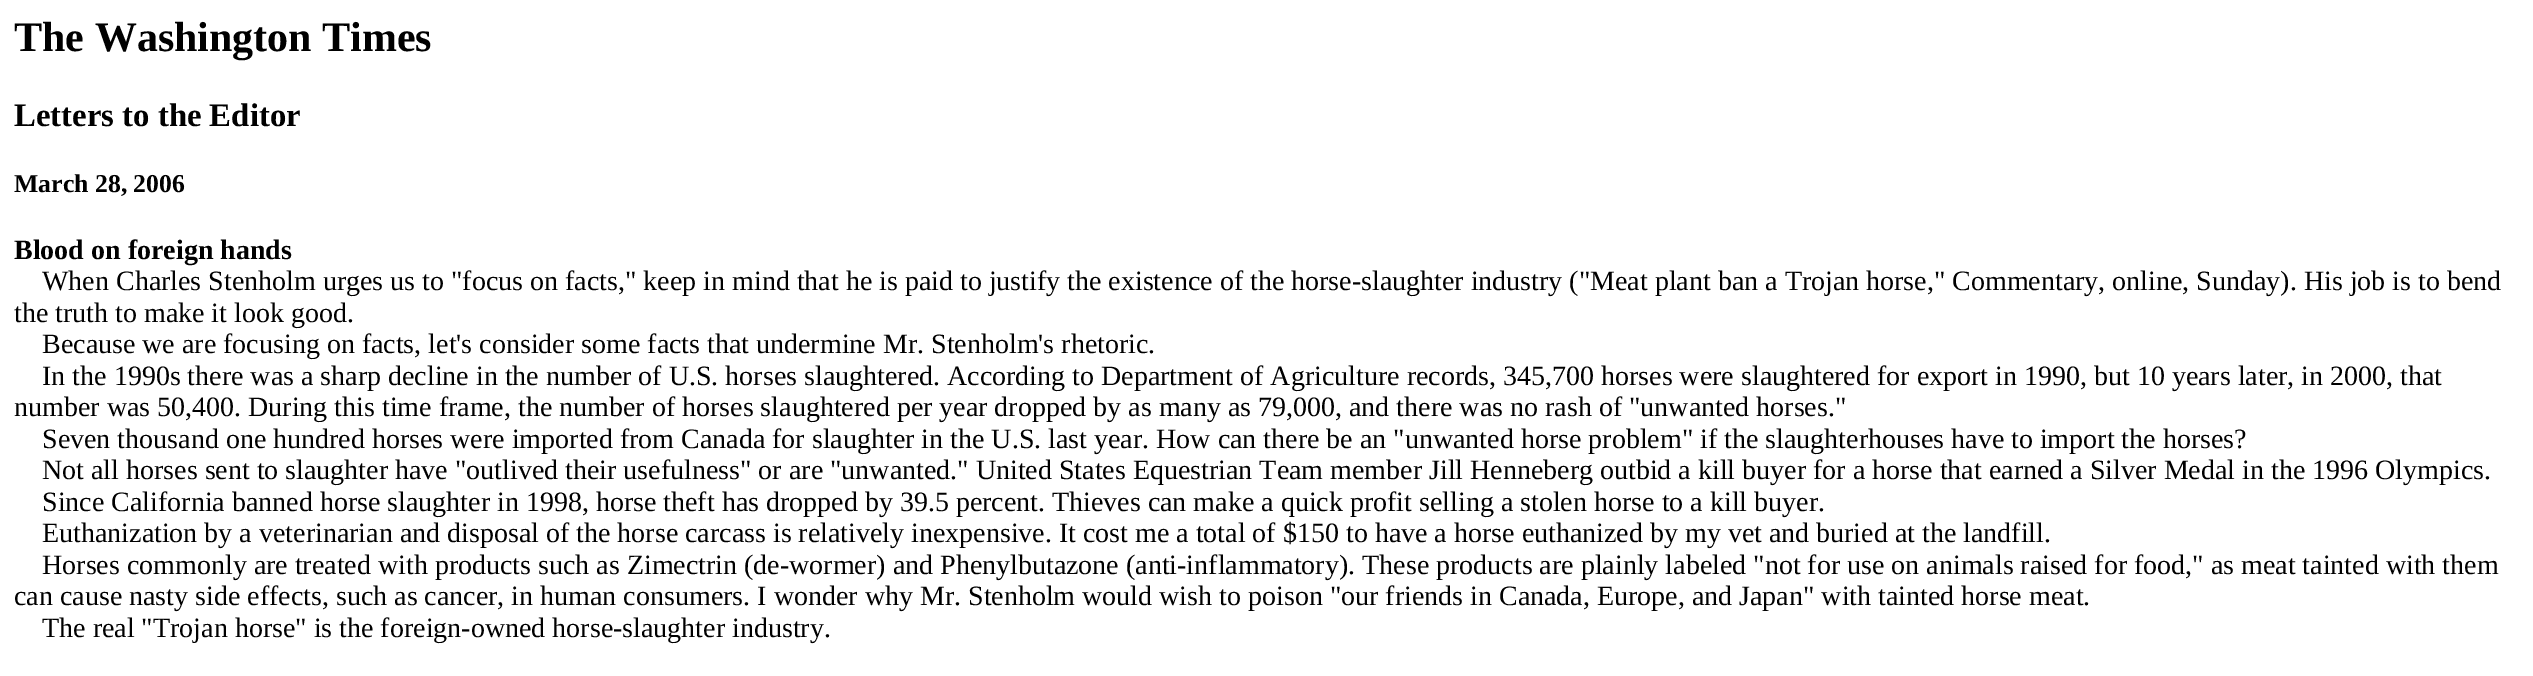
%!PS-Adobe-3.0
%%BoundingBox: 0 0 2533 676
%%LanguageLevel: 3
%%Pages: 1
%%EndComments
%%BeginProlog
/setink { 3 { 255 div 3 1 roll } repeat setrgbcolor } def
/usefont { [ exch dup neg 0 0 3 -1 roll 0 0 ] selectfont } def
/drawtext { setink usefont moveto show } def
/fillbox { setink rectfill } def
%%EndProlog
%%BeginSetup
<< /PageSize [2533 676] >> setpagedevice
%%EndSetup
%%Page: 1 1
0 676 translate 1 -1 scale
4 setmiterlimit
0 0 2533 676 255 255 255 fillbox
(The Washington Times) 14 51 /LiberationSerif-Bold 42 0 0 0 drawtext
(Letters to the Editor) 14 126 /LiberationSerif-Bold 32.75 0 0 0 drawtext
(March 28, 2006) 14 192 /LiberationSerif-Bold 25.75 0 0 0 drawtext
(Blood on foreign hands) 14 259 /LiberationSerif-Bold 28 0 0 0 drawtext
(When Charles Stenholm urges us to "focus on facts," keep in mind that he is paid to justify the existence of the horse-slaughter industry \("Meat plant ban a Trojan horse," Commentary, online, Sunday\). His job is to bend) 42 290 /LiberationSerif-Regular 28 0 0 0 drawtext
(the truth to make it look good.) 14 322 /LiberationSerif-Regular 28 0 0 0 drawtext
(Because we are focusing on facts, let's consider some facts that undermine Mr. Stenholm's rhetoric.) 42 353 /LiberationSerif-Regular 28 0 0 0 drawtext
(In the 1990s there was a sharp decline in the number of U.S. horses slaughtered. According to Department of Agriculture records, 345,700 horses were slaughtered for export in 1990, but 10 years later, in 2000, that) 42 385 /LiberationSerif-Regular 28 0 0 0 drawtext
(number was 50,400. During this time frame, the number of horses slaughtered per year dropped by as many as 79,000, and there was no rash of "unwanted horses.") 14 416 /LiberationSerif-Regular 28 0 0 0 drawtext
(Seven thousand one hundred horses were imported from Canada for slaughter in the U.S. last year. How can there be an "unwanted horse problem" if the slaughterhouses have to import the horses?) 42 448 /LiberationSerif-Regular 28 0 0 0 drawtext
(Not all horses sent to slaughter have "outlived their usefulness" or are "unwanted." United States Equestrian Team member Jill Henneberg outbid a kill buyer for a horse that earned a Silver Medal in the 1996 Olympics.) 42 479 /LiberationSerif-Regular 28 0 0 0 drawtext
(Since California banned horse slaughter in 1998, horse theft has dropped by 39.5 percent. Thieves can make a quick profit selling a stolen horse to a kill buyer.) 42 511 /LiberationSerif-Regular 28 0 0 0 drawtext
(Euthanization by a veterinarian and disposal of the horse carcass is relatively inexpensive. It cost me a total of $150 to have a horse euthanized by my vet and buried at the landfill.) 42 542 /LiberationSerif-Regular 28 0 0 0 drawtext
(Horses commonly are treated with products such as Zimectrin \(de-wormer\) and Phenylbutazone \(anti-inflammatory\). These products are plainly labeled "not for use on animals raised for food," as meat tainted with them) 42 574 /LiberationSerif-Regular 28 0 0 0 drawtext
(can cause nasty side effects, such as cancer, in human consumers. I wonder why Mr. Stenholm would wish to poison "our friends in Canada, Europe, and Japan" with tainted horse meat.) 14 605 /LiberationSerif-Regular 28 0 0 0 drawtext
(The real "Trojan horse" is the foreign-owned horse-slaughter industry.) 42 637 /LiberationSerif-Regular 28 0 0 0 drawtext
showpage
%%EOF
